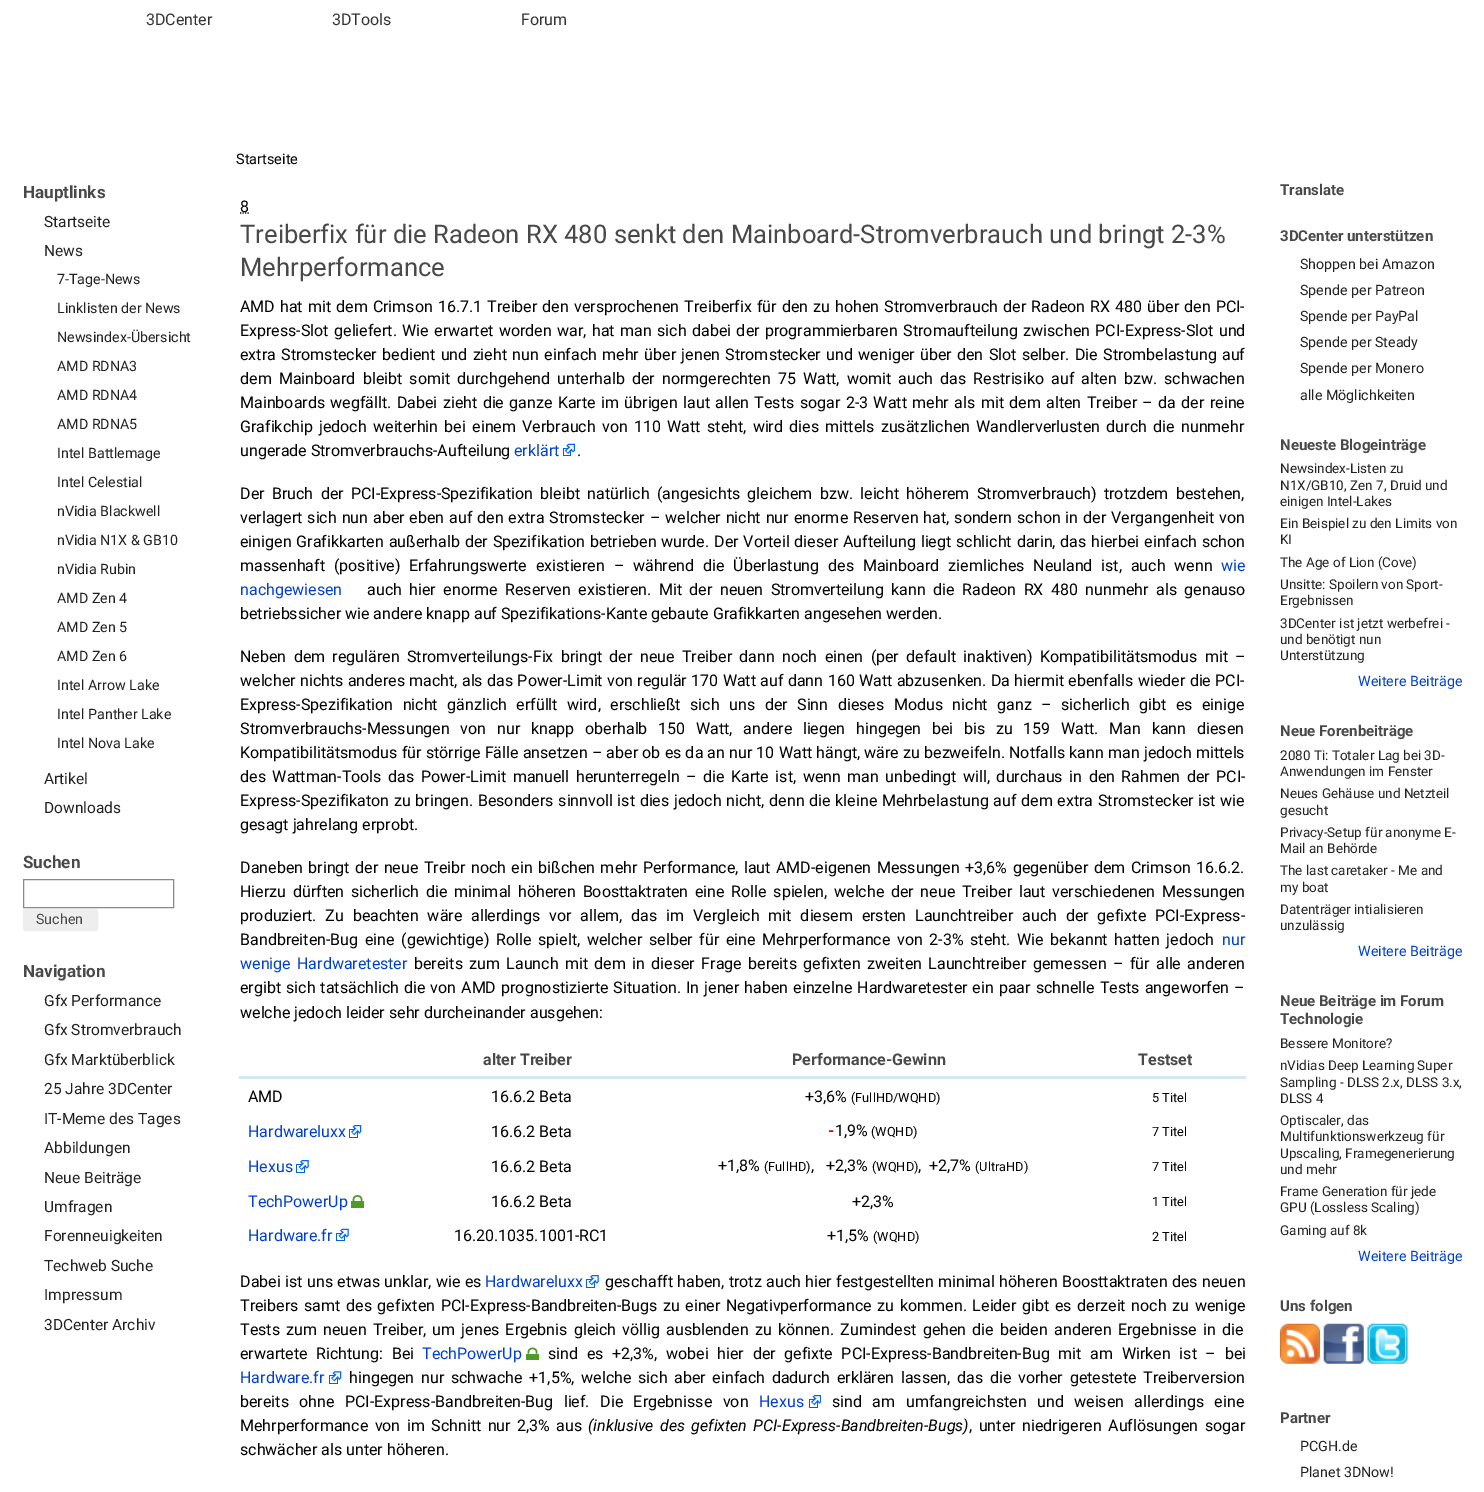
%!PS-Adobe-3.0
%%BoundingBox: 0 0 1484 1492
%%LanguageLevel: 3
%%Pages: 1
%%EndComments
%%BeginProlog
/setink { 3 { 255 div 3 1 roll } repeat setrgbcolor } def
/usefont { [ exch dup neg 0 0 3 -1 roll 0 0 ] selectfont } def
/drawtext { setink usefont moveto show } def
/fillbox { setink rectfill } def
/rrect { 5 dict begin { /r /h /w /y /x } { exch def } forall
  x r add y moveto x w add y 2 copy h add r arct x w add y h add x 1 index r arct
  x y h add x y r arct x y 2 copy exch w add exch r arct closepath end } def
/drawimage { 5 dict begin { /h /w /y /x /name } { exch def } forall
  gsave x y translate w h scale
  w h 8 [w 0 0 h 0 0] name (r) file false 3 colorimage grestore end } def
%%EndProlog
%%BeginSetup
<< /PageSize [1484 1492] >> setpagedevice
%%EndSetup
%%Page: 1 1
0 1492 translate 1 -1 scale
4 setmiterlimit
0 0 1484 1492 255 255 255 fillbox
(3DCenter) 146 25 /Roboto-Regular 16 51 51 51 drawtext
(3DTools) 332 25 /Roboto-Regular 16 51 51 51 drawtext
(Forum) 521 25 /Roboto-Regular 16 51 51 51 drawtext
(Hauptlinks) 23 198 /Roboto-Bold 17 73 73 73 drawtext
(Startseite) 44 227 /Roboto-Regular 15.5 34 34 34 drawtext
(News) 44 256 /Roboto-Regular 15.5 34 34 34 drawtext
(7-Tage-News) 57 284 /Roboto-Regular 14.25 34 34 34 drawtext
(Linklisten der News) 57 313 /Roboto-Regular 14.25 34 34 34 drawtext
(Newsindex-Übersicht) 57 342 /Roboto-Regular 14.25 34 34 34 drawtext
(AMD RDNA3) 57 371 /Roboto-Regular 14.25 34 34 34 drawtext
(AMD RDNA4) 57 400 /Roboto-Regular 14.25 34 34 34 drawtext
(AMD RDNA5) 57 429 /Roboto-Regular 14.25 34 34 34 drawtext
(Intel Battlemage) 57 458 /Roboto-Regular 14.25 34 34 34 drawtext
(Intel Celestial) 57 487 /Roboto-Regular 14.25 34 34 34 drawtext
(nVidia Blackwell) 57 516 /Roboto-Regular 14.25 34 34 34 drawtext
(nVidia N1X & GB10) 57 545 /Roboto-Regular 14.25 34 34 34 drawtext
(nVidia Rubin) 57 574 /Roboto-Regular 14.25 34 34 34 drawtext
(AMD Zen 4) 57 603 /Roboto-Regular 14.25 34 34 34 drawtext
(AMD Zen 5) 57 632 /Roboto-Regular 14.25 34 34 34 drawtext
(AMD Zen 6) 57 661 /Roboto-Regular 14.25 34 34 34 drawtext
(Intel Arrow Lake) 57 690 /Roboto-Regular 14.25 34 34 34 drawtext
(Intel Panther Lake) 57 719 /Roboto-Regular 14.25 34 34 34 drawtext
(Intel Nova Lake) 57 748 /Roboto-Regular 14.25 34 34 34 drawtext
(Artikel) 44 784 /Roboto-Regular 15.5 34 34 34 drawtext
(Downloads) 44 813 /Roboto-Regular 15.5 34 34 34 drawtext
(Suchen) 23 868 /Roboto-Bold 17 73 73 73 drawtext
137 137 137 setink
23.5 879.5 150 28 rectstroke
238 238 238 setink
24.5 910.5 72 19 1 rrect gsave fill grestore
3 setlinewidth
stroke
(Suchen) 36 924 /Roboto-Regular 14.25 73 73 73 drawtext
(Navigation) 23 977 /Roboto-Bold 17 73 73 73 drawtext
(Gfx Performance) 44 1006 /Roboto-Regular 15.5 34 34 34 drawtext
(Gfx Stromverbrauch) 44 1035 /Roboto-Regular 15.5 34 34 34 drawtext
(Gfx Marktüberblick) 44 1065 /Roboto-Regular 15.5 34 34 34 drawtext
(25 Jahre 3DCenter) 44 1094 /Roboto-Regular 15.5 34 34 34 drawtext
(IT-Meme des Tages) 44 1124 /Roboto-Regular 15.5 34 34 34 drawtext
(Abbildungen) 44 1153 /Roboto-Regular 15.5 34 34 34 drawtext
(Neue Beiträge) 44 1183 /Roboto-Regular 15.5 34 34 34 drawtext
(Umfragen) 44 1212 /Roboto-Regular 15.5 34 34 34 drawtext
(Forenneuigkeiten) 44 1241 /Roboto-Regular 15.5 34 34 34 drawtext
(Techweb Suche) 44 1271 /Roboto-Regular 15.5 34 34 34 drawtext
(Impressum) 44 1300 /Roboto-Regular 15.5 34 34 34 drawtext
(3DCenter Archiv) 44 1330 /Roboto-Regular 15.5 34 34 34 drawtext
(Startseite) 236 164 /Roboto-Regular 14.5 0 0 0 drawtext
1.2 setlinewidth
[1.25 1.25] 0 setdash
240 213 moveto 249 213 lineto stroke
(8) 240 212 /Roboto-Regular 16 0 0 0 drawtext
(Treiberfix für die Radeon RX 480 senkt den Mainboard-Stromverbrauch und bringt 2-3%) 240 243 /Roboto-Regular 25.6 73 73 73 drawtext
(Mehrperformance) 240 276 /Roboto-Regular 25.6 73 73 73 drawtext
/Roboto-Regular 16 usefont
0 0 0 setink
240 312 moveto 1.1 0 32 (AMD hat mit dem Crimson 16.7.1 Treiber den versprochenen Treiberfix für den zu hohen Stromverbrauch der Radeon RX 480 über den PCI-) widthshow
240 336 moveto 1.5 0 32 (Express-Slot geliefert. Wie erwartet worden war, hat man sich dabei der programmierbaren Stromaufteilung zwischen PCI-Express-Slot und) widthshow
240 360 moveto 1.4 0 32 (extra Stromstecker bedient und zieht nun einfach mehr über jenen Stromstecker und weniger über den Slot selber. Die Strombelastung auf) widthshow
240 384 moveto 3.25 0 32 (dem Mainboard bleibt somit durchgehend unterhalb der normgerechten 75 Watt, womit auch das Restrisiko auf alten bzw. schwachen) widthshow
240 408 moveto 1.45 0 32 (Mainboards wegfällt. Dabei zieht die ganze Karte im übrigen laut allen Tests sogar 2-3 Watt mehr als mit dem alten Treiber – da der reine) widthshow
240 432 moveto 2.4 0 32 (Grafikchip jedoch weiterhin bei einem Verbrauch von 110 Watt steht, wird dies mittels zusätzlichen Wandlerverlusten durch die nunmehr) widthshow
(ungerade Stromverbrauchs-Aufteilung) 240 456 /Roboto-Regular 16 0 0 0 drawtext
(erklärt) 514 456 /Roboto-Regular 16 2 65 208 drawtext
(assets/img1.rgb) 563 443 12 13 drawimage
(.) 577 456 /Roboto-Regular 16 0 0 0 drawtext
240 499 moveto 3.4 0 32 (Der Bruch der PCI-Express-Spezifikation bleibt natürlich \(angesichts gleichem bzw. leicht höherem Stromverbrauch\) trotzdem bestehen,) widthshow
240 523 moveto 0.95 0 32 (verlagert sich nun aber eben auf den extra Stromstecker – welcher nicht nur enorme Reserven hat, sondern schon in der Vergangenheit von) widthshow
240 547 moveto 0.9 0 32 (einigen Grafikkarten außerhalb der Spezifikation betrieben wurde. Der Vorteil dieser Aufteilung liegt schlicht darin, das hierbei einfach schon) widthshow
240 571 moveto 4.9 0 32 (massenhaft \(positive\) Erfahrungswerte existieren – während die Überlastung des Mainboard ziemliches Neuland ist, auch wenn) widthshow
(wie) 1221 571 /Roboto-Regular 16 2 65 208 drawtext
(nachgewiesen) 240 595 /Roboto-Regular 16 2 65 208 drawtext
0 0 0 setink
367 595 moveto 3.5 0 32 (auch hier enorme Reserven existieren. Mit der neuen Stromverteilung kann die Radeon RX 480 nunmehr als genauso) widthshow
(betriebssicher wie andere knapp auf Spezifikations-Kante gebaute Grafikkarten angesehen werden.) 240 619 /Roboto-Regular 16 0 0 0 drawtext
240 662 moveto 3.4 0 32 (Neben dem regulären Stromverteilungs-Fix bringt der neue Treiber dann noch einen \(per default inaktiven\) Kompatibilitätsmodus mit –) widthshow
240 686 moveto 0.4 0 32 (welcher nichts anderes macht, als das Power-Limit von regulär 170 Watt auf dann 160 Watt abzusenken. Da hiermit ebenfalls wieder die PCI-) widthshow
240 710 moveto 5.6 0 32 (Express-Spezifikation nicht gänzlich erfüllt wird, erschließt sich uns der Sinn dieses Modus nicht ganz – sicherlich gibt es einige) widthshow
240 734 moveto 6.75 0 32 (Stromverbrauchs-Messungen von nur knapp oberhalb 150 Watt, andere liegen hingegen bei bis zu 159 Watt. Man kann diesen) widthshow
240 758 moveto 0.25 0 32 (Kompatibilitätsmodus für störrige Fälle ansetzen – aber ob es da an nur 10 Watt hängt, wäre zu bezweifeln. Notfalls kann man jedoch mittels) widthshow
240 782 moveto 2.6 0 32 (des Wattman-Tools das Power-Limit manuell herunterregeln – die Karte ist, wenn man unbedingt will, durchaus in den Rahmen der PCI-) widthshow
240 806 moveto 0.75 0 32 (Express-Spezifikaton zu bringen. Besonders sinnvoll ist dies jedoch nicht, denn die kleine Mehrbelastung auf dem extra Stromstecker ist wie) widthshow
(gesagt jahrelang erprobt.) 240 830 /Roboto-Regular 16 0 0 0 drawtext
240 873 moveto 1.5 0 32 (Daneben bringt der neue Treibr noch ein bißchen mehr Performance, laut AMD-eigenen Messungen +3,6% gegenüber dem Crimson 16.6.2.) widthshow
240 897 moveto 2.75 0 32 (Hierzu dürften sicherlich die minimal höheren Boosttaktraten eine Rolle spielen, welche der neue Treiber laut verschiedenen Messungen) widthshow
240 921 moveto 4.9 0 32 (produziert. Zu beachten wäre allerdings vor allem, das im Vergleich mit diesem ersten Launchtreiber auch der gefixte PCI-Express-) widthshow
240 945 moveto 2.75 0 32 (Bandbreiten-Bug eine \(gewichtige\) Rolle spielt, welcher selber für eine Mehrperformance von 2-3% steht. Wie bekannt hatten jedoch) widthshow
(nur) 1222 945 /Roboto-Regular 16 2 65 208 drawtext
240 969 moveto 2.4 0 32 (wenige Hardwaretester) widthshow
0 0 0 setink
414 969 moveto 2.4 0 32 (bereits zum Launch mit dem in dieser Frage bereits gefixten zweiten Launchtreiber gemessen – für alle anderen) widthshow
240 993 moveto 1.1 0 32 (ergibt sich tatsächlich die von AMD prognostizierte Situation. In jener haben einzelne Hardwaretester ein paar schnelle Tests angeworfen –) widthshow
(welche jedoch leider sehr durcheinander ausgehen:) 240 1018 /Roboto-Regular 16 0 0 0 drawtext
(alter Treiber) 483 1065 /Roboto-Bold 16 73 73 73 drawtext
(Performance-Gewinn) 792 1065 /Roboto-Bold 16 73 73 73 drawtext
239 1076 1007 3 211 231 244 fillbox
(Testset) 1138 1065 /Roboto-Bold 16 73 73 73 drawtext
(AMD) 248 1102 /Roboto-Regular 16 0 0 0 drawtext
(16.6.2 Beta) 491 1102 /Roboto-Regular 16 0 0 0 drawtext
(+3,6%) 805 1102 /Roboto-Regular 16 0 0 0 drawtext
(\(FullHD/WQHD\)) 851 1102 /Roboto-Regular 12.75 0 0 0 drawtext
(5 Titel) 1152 1102 /Roboto-Regular 12.75 0 0 0 drawtext
(Hardwareluxx) 248 1137 /Roboto-Regular 16 2 65 208 drawtext
(assets/img2.rgb) 349 1125 13 13 drawimage
(16.6.2 Beta) 491 1137 /Roboto-Regular 16 0 0 0 drawtext
(-) 828 1136 /Roboto-Bold 16 221 0 0 drawtext
(1,9%) 835 1136 /Roboto-Regular 16 0 0 0 drawtext
(\(WQHD\)) 871 1136 /Roboto-Regular 12.75 0 0 0 drawtext
(7 Titel) 1152 1136 /Roboto-Regular 12.75 0 0 0 drawtext
(Hexus) 248 1172 /Roboto-Regular 16 2 65 208 drawtext
(assets/img3.rgb) 296 1160 13 13 drawimage
(16.6.2 Beta) 491 1172 /Roboto-Regular 16 0 0 0 drawtext
(+1,8%) 718 1171 /Roboto-Regular 16 0 0 0 drawtext
(\(FullHD\)) 764 1171 /Roboto-Regular 12.75 0 0 0 drawtext
(,   +2,3%) 811 1171 /Roboto-Regular 16 0 0 0 drawtext
(\(WQHD\)) 872 1171 /Roboto-Regular 12.75 0 0 0 drawtext
(,  +2,7%) 918 1171 /Roboto-Regular 16 0 0 0 drawtext
(\(UltraHD\)) 975 1171 /Roboto-Regular 12.75 0 0 0 drawtext
(7 Titel) 1152 1171 /Roboto-Regular 12.75 0 0 0 drawtext
(TechPowerUp) 248 1207 /Roboto-Regular 16 2 65 208 drawtext
(assets/img4.rgb) 351 1195 13 13 drawimage
(16.6.2 Beta) 491 1207 /Roboto-Regular 16 0 0 0 drawtext
(+2,3%) 852 1207 /Roboto-Regular 16 0 0 0 drawtext
(1 Titel) 1152 1206 /Roboto-Regular 12.75 0 0 0 drawtext
(Hardware.fr) 248 1241 /Roboto-Regular 16 2 65 208 drawtext
(assets/img5.rgb) 336 1228 13 13 drawimage
(16.20.1035.1001-RC1) 454 1241 /Roboto-Regular 16 0 0 0 drawtext
(+1,5%) 827 1241 /Roboto-Regular 16 0 0 0 drawtext
(\(WQHD\)) 873 1241 /Roboto-Regular 12.75 0 0 0 drawtext
(2 Titel) 1152 1241 /Roboto-Regular 12.75 0 0 0 drawtext
/Roboto-Regular 16 usefont
240 1287 moveto 0.5 0 32 (Dabei ist uns etwas unklar, wie es) widthshow
(Hardwareluxx) 485 1287 /Roboto-Regular 16 2 65 208 drawtext
(assets/img3.rgb) 586 1275 13 13 drawimage
0 0 0 setink
605 1287 moveto 0.4 0 32 (geschafft haben, trotz auch hier festgestellten minimal höheren Boosttaktraten des neuen) widthshow
240 1311 moveto 1.7 0 32 (Treibers samt des gefixten PCI-Express-Bandbreiten-Bugs zu einer Negativperformance zu kommen. Leider gibt es derzeit noch zu wenige) widthshow
240 1335 moveto 2.25 0 32 (Tests zum neuen Treiber, um jenes Ergebnis gleich völlig ausblenden zu können. Zumindest gehen die beiden anderen Ergebnisse in die) widthshow
240 1359 moveto 4.75 0 32 (erwartete Richtung: Bei) widthshow
(TechPowerUp) 422 1359 /Roboto-Regular 16 2 65 208 drawtext
(assets/img6.rgb) 526 1347 13 13 drawimage
0 0 0 setink
548 1359 moveto 4.75 0 32 (sind es +2,3%, wobei hier der gefixte PCI-Express-Bandbreiten-Bug mit am Wirken ist – bei) widthshow
(Hardware.fr) 240 1383 /Roboto-Regular 16 2 65 208 drawtext
(assets/img7.rgb) 329 1371 13 13 drawimage
0 0 0 setink
349 1383 moveto 2.75 0 32 (hingegen nur schwache +1,5%, welche sich aber einfach dadurch erklären lassen, das die vorher getestete Treiberversion) widthshow
240 1407 moveto 6.5 0 32 (bereits ohne PCI-Express-Bandbreiten-Bug lief. Die Ergebnisse von) widthshow
(Hexus) 759 1407 /Roboto-Regular 16 2 65 208 drawtext
(assets/img8.rgb) 809 1395 12 13 drawimage
0 0 0 setink
832 1407 moveto 6.5 0 32 (sind am umfangreichsten und weisen allerdings eine) widthshow
240 1431 moveto 2.5 0 32 (Mehrperformance von im Schnitt nur 2,3% aus) widthshow
/Roboto-Italic 16 usefont
588 1431 moveto 2.5 0 32 (\(inklusive des gefixten PCI-Express-Bandbreiten-Bugs\)) widthshow
/Roboto-Regular 16 usefont
969 1431 moveto 2.5 0 32 (, unter niedrigeren Auflösungen sogar) widthshow
(schwächer als unter höheren.) 240 1455 /Roboto-Regular 16 0 0 0 drawtext
(Translate) 1280 195 /Roboto-Bold 15 73 73 73 drawtext
(3DCenter unterstützen) 1280 241 /Roboto-Bold 15 73 73 73 drawtext
(Shoppen bei Amazon) 1300 269 /Roboto-Regular 14.25 34 34 34 drawtext
(Spende per Patreon) 1300 295 /Roboto-Regular 14.25 34 34 34 drawtext
(Spende per PayPal) 1300 321 /Roboto-Regular 14.25 34 34 34 drawtext
(Spende per Steady) 1300 347 /Roboto-Regular 14.25 34 34 34 drawtext
(Spende per Monero) 1300 373 /Roboto-Regular 14.25 34 34 34 drawtext
(alle Möglichkeiten) 1300 400 /Roboto-Regular 14.25 34 34 34 drawtext
(Neueste Blogeinträge) 1280 450 /Roboto-Bold 15 73 73 73 drawtext
(Newsindex-Listen zu) 1280 473 /Roboto-Regular 13.5 34 34 34 drawtext
(N1X/GB10, Zen 7, Druid und) 1280 490 /Roboto-Regular 13.5 34 34 34 drawtext
(einigen Intel-Lakes) 1280 506 /Roboto-Regular 13.5 34 34 34 drawtext
(Ein Beispiel zu den Limits von) 1280 528 /Roboto-Regular 13.5 34 34 34 drawtext
(KI) 1280 544 /Roboto-Regular 13.5 34 34 34 drawtext
(The Age of Lion \(Cove\)) 1280 567 /Roboto-Regular 13.5 34 34 34 drawtext
(Unsitte: Spoilern von Sport-) 1280 589 /Roboto-Regular 13.5 34 34 34 drawtext
(Ergebnissen) 1280 605 /Roboto-Regular 13.5 34 34 34 drawtext
(3DCenter ist jetzt werbefrei -) 1280 628 /Roboto-Regular 13.5 34 34 34 drawtext
(und benötigt nun) 1280 644 /Roboto-Regular 13.5 34 34 34 drawtext
(Unterstützung) 1280 660 /Roboto-Regular 13.5 34 34 34 drawtext
(Weitere Beiträge) 1358 686 /Roboto-Regular 14.25 2 65 208 drawtext
(Neue Forenbeiträge) 1280 736 /Roboto-Bold 15 73 73 73 drawtext
(2080 Ti: Totaler Lag bei 3D-) 1280 760 /Roboto-Regular 13.5 34 34 34 drawtext
(Anwendungen im Fenster) 1280 776 /Roboto-Regular 13.5 34 34 34 drawtext
(Neues Gehäuse und Netzteil) 1280 798 /Roboto-Regular 13.5 34 34 34 drawtext
(gesucht) 1280 815 /Roboto-Regular 13.5 34 34 34 drawtext
(Privacy-Setup für anonyme E-) 1280 837 /Roboto-Regular 13.5 34 34 34 drawtext
(Mail an Behörde) 1280 853 /Roboto-Regular 13.5 34 34 34 drawtext
(The last caretaker - Me and) 1280 875 /Roboto-Regular 13.5 34 34 34 drawtext
(my boat) 1280 892 /Roboto-Regular 13.5 34 34 34 drawtext
(Datenträger intialisieren) 1280 914 /Roboto-Regular 13.5 34 34 34 drawtext
(unzulässig) 1280 930 /Roboto-Regular 13.5 34 34 34 drawtext
(Weitere Beiträge) 1358 956 /Roboto-Regular 14.25 2 65 208 drawtext
(Neue Beiträge im Forum) 1280 1006 /Roboto-Bold 15 73 73 73 drawtext
(Technologie) 1280 1024 /Roboto-Bold 15 73 73 73 drawtext
(Bessere Monitore?) 1280 1048 /Roboto-Regular 13.5 34 34 34 drawtext
(nVidias Deep Learning Super) 1280 1070 /Roboto-Regular 13.5 34 34 34 drawtext
(Sampling - DLSS 2.x, DLSS 3.x,) 1280 1087 /Roboto-Regular 13.5 34 34 34 drawtext
(DLSS 4) 1280 1103 /Roboto-Regular 13.5 34 34 34 drawtext
(Optiscaler, das) 1280 1125 /Roboto-Regular 13.5 34 34 34 drawtext
(Multifunktionswerkzeug für) 1280 1141 /Roboto-Regular 13.5 34 34 34 drawtext
(Upscaling, Framegenerierung) 1280 1158 /Roboto-Regular 13.5 34 34 34 drawtext
(und mehr) 1280 1174 /Roboto-Regular 13.5 34 34 34 drawtext
(Frame Generation für jede) 1280 1196 /Roboto-Regular 13.5 34 34 34 drawtext
(GPU \(Lossless Scaling\)) 1280 1212 /Roboto-Regular 13.5 34 34 34 drawtext
(Gaming auf 8k) 1280 1235 /Roboto-Regular 13.5 34 34 34 drawtext
(Weitere Beiträge) 1358 1261 /Roboto-Regular 14.25 2 65 208 drawtext
(Uns folgen) 1280 1311 /Roboto-Bold 15 73 73 73 drawtext
(assets/img9.rgb) 1280 1323 40 41 drawimage
(assets/img10.rgb) 1323 1323 41 41 drawimage
(assets/img11.rgb) 1367 1323 41 41 drawimage
(Partner) 1280 1423 /Roboto-Bold 15 73 73 73 drawtext
(PCGH.de) 1300 1451 /Roboto-Regular 14.25 34 34 34 drawtext
(Planet 3DNow!) 1300 1477 /Roboto-Regular 14.25 34 34 34 drawtext
showpage
%%EOF
